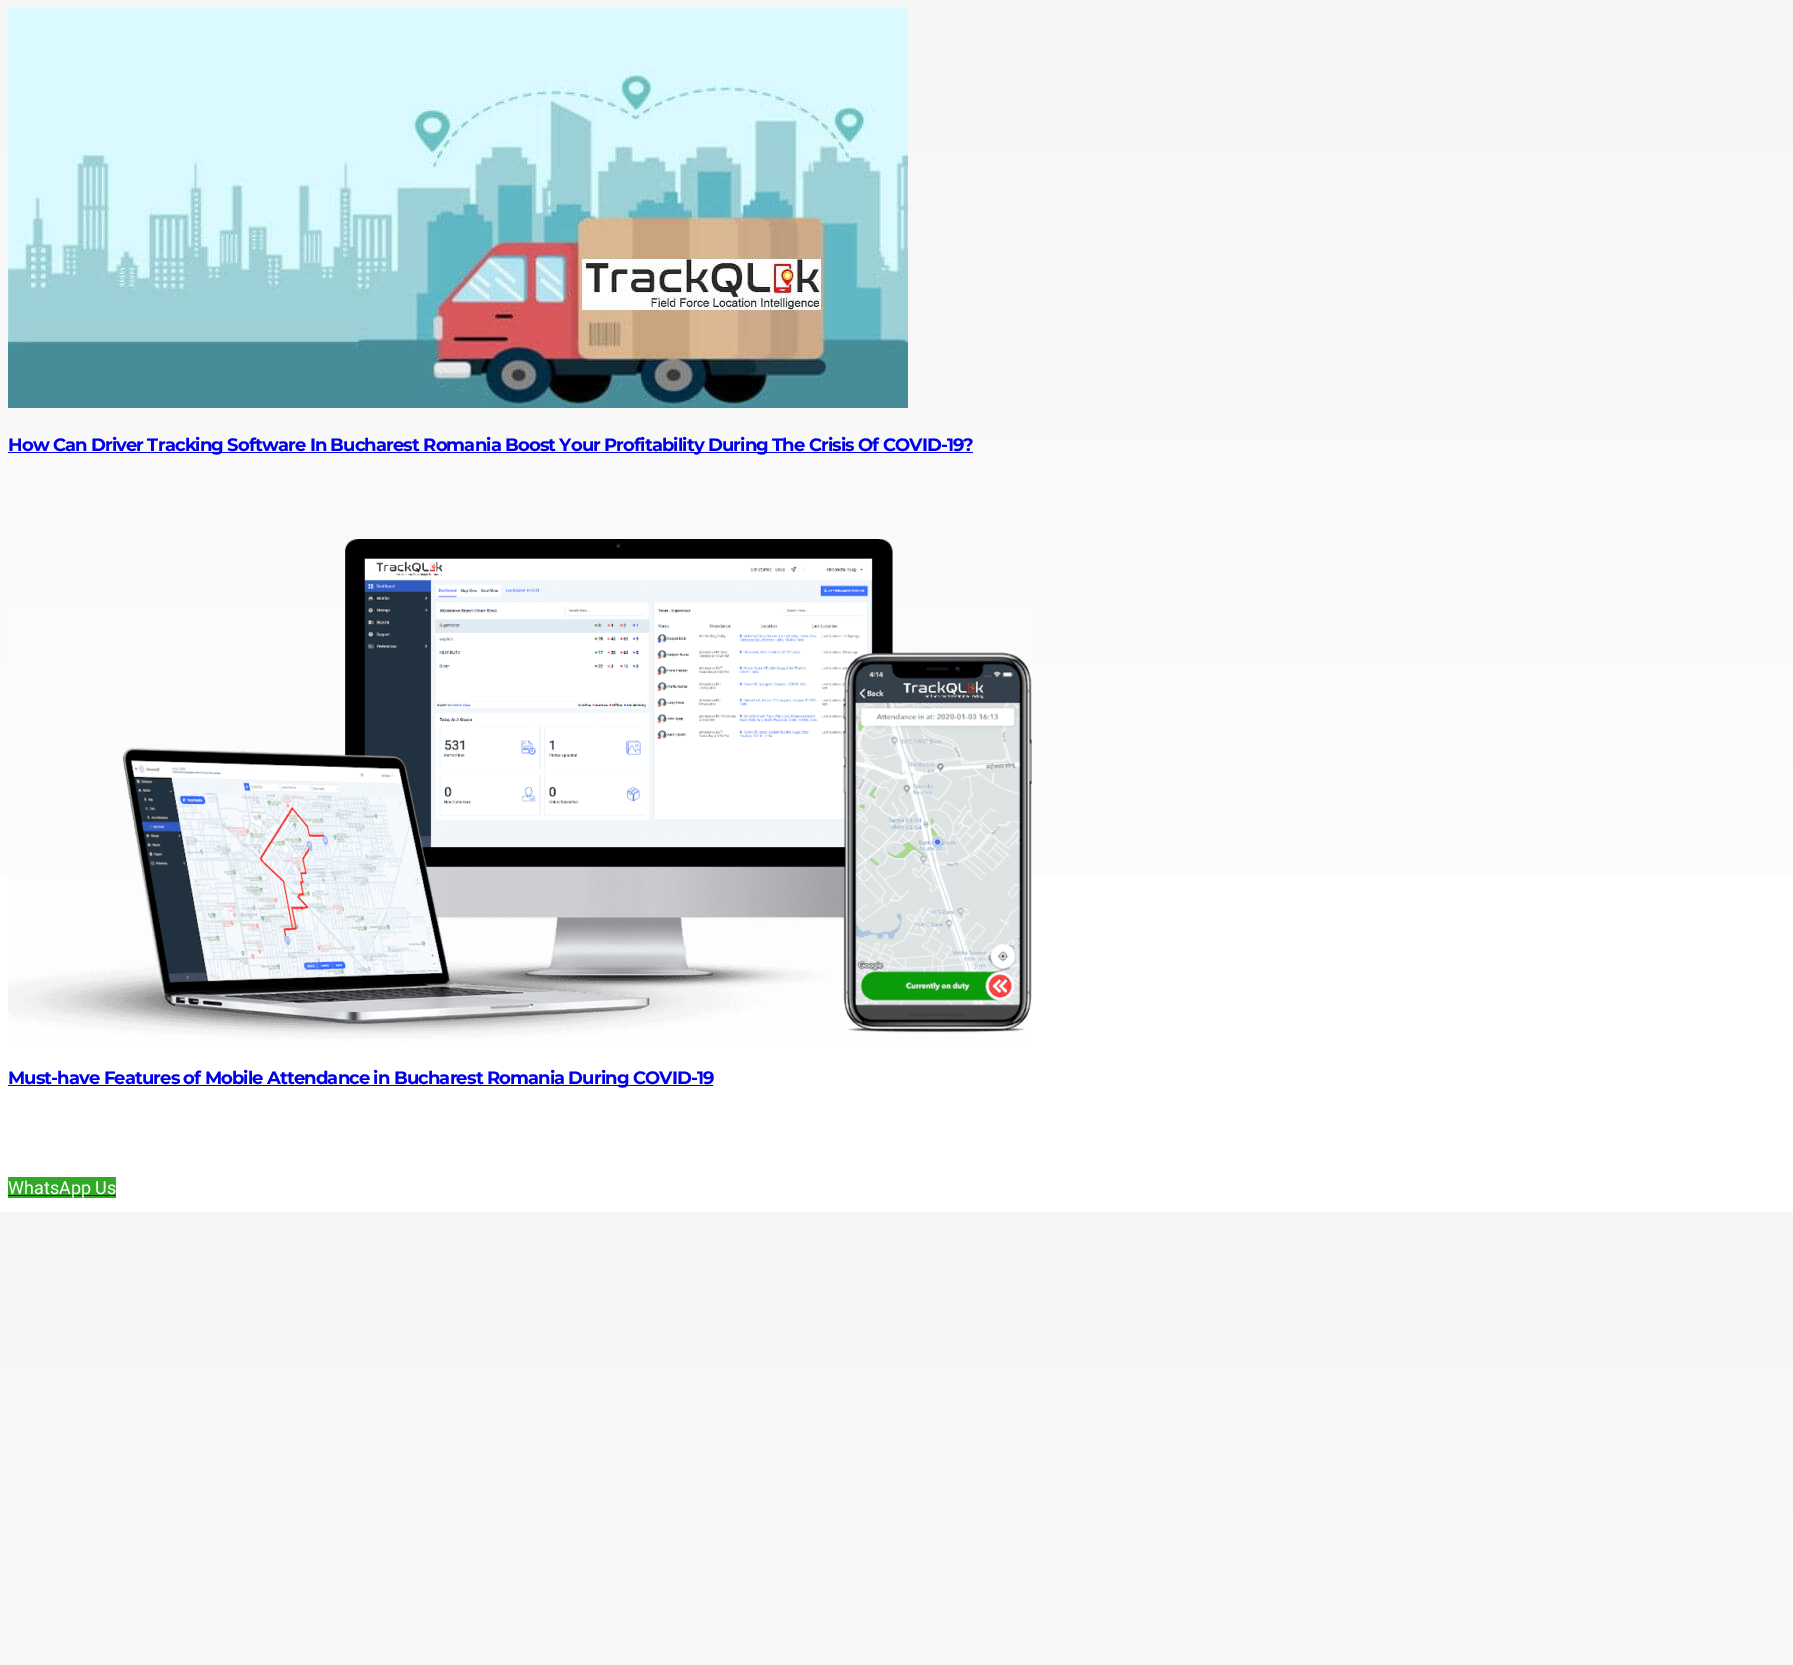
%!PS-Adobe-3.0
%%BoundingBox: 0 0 1793 1665
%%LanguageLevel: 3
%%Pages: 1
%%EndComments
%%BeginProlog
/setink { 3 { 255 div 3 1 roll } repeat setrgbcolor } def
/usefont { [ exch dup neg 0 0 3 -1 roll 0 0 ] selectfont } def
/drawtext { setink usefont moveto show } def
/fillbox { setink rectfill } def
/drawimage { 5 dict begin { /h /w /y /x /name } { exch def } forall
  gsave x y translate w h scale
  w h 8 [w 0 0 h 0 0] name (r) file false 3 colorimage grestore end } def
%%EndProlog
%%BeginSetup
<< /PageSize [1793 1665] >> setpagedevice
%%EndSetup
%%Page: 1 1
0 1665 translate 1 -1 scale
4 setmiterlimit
0 0 1793 1665 255 255 255 fillbox
gsave 0 0 moveto 1793 0 lineto 1793 876 lineto 0 876 lineto closepath clip newpath
<< /ShadingType 2 /ColorSpace /DeviceRGB /Coords [896 0 897 1212] /Extend [true true] /Function << /FunctionType 2 /Domain [0 1] /C0 [0.965 0.965 0.965] /C1 [1 1 1] /N 1 >> >> shfill grestore
gsave 0 1212 moveto 1793 1212 lineto 1793 1665 lineto 0 1665 lineto closepath clip newpath
<< /ShadingType 2 /ColorSpace /DeviceRGB /Coords [896 1212 897 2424] /Extend [true true] /Function << /FunctionType 2 /Domain [0 1] /C0 [0.965 0.965 0.965] /C1 [1 1 1] /N 1 >> >> shfill grestore
(assets/img1.rgb) 8 8 900 400 drawimage
8 452 965 1 0 0 238 fillbox
/Montserrat-Bold 18 usefont
8 451 moveto -0.9 0 (How Can Driver Tracking Software In Bucharest Romania Boost Your Profitability During The Crisis Of COVID-19?) ashow
(assets/img2.rgb) 8 539 1024 502 drawimage
8 1085 705 1 0 0 238 fillbox
8 1084 moveto -0.9 0 (Must-have Features of Mobile Attendance in Bucharest Romania During COVID-19) ashow
8 1177 108 21 50 170 39 fillbox
8 1195 108 1 0 0 238 fillbox
(WhatsApp Us) 8 1194 /Roboto-Regular 18 255 255 255 drawtext
showpage
%%EOF
